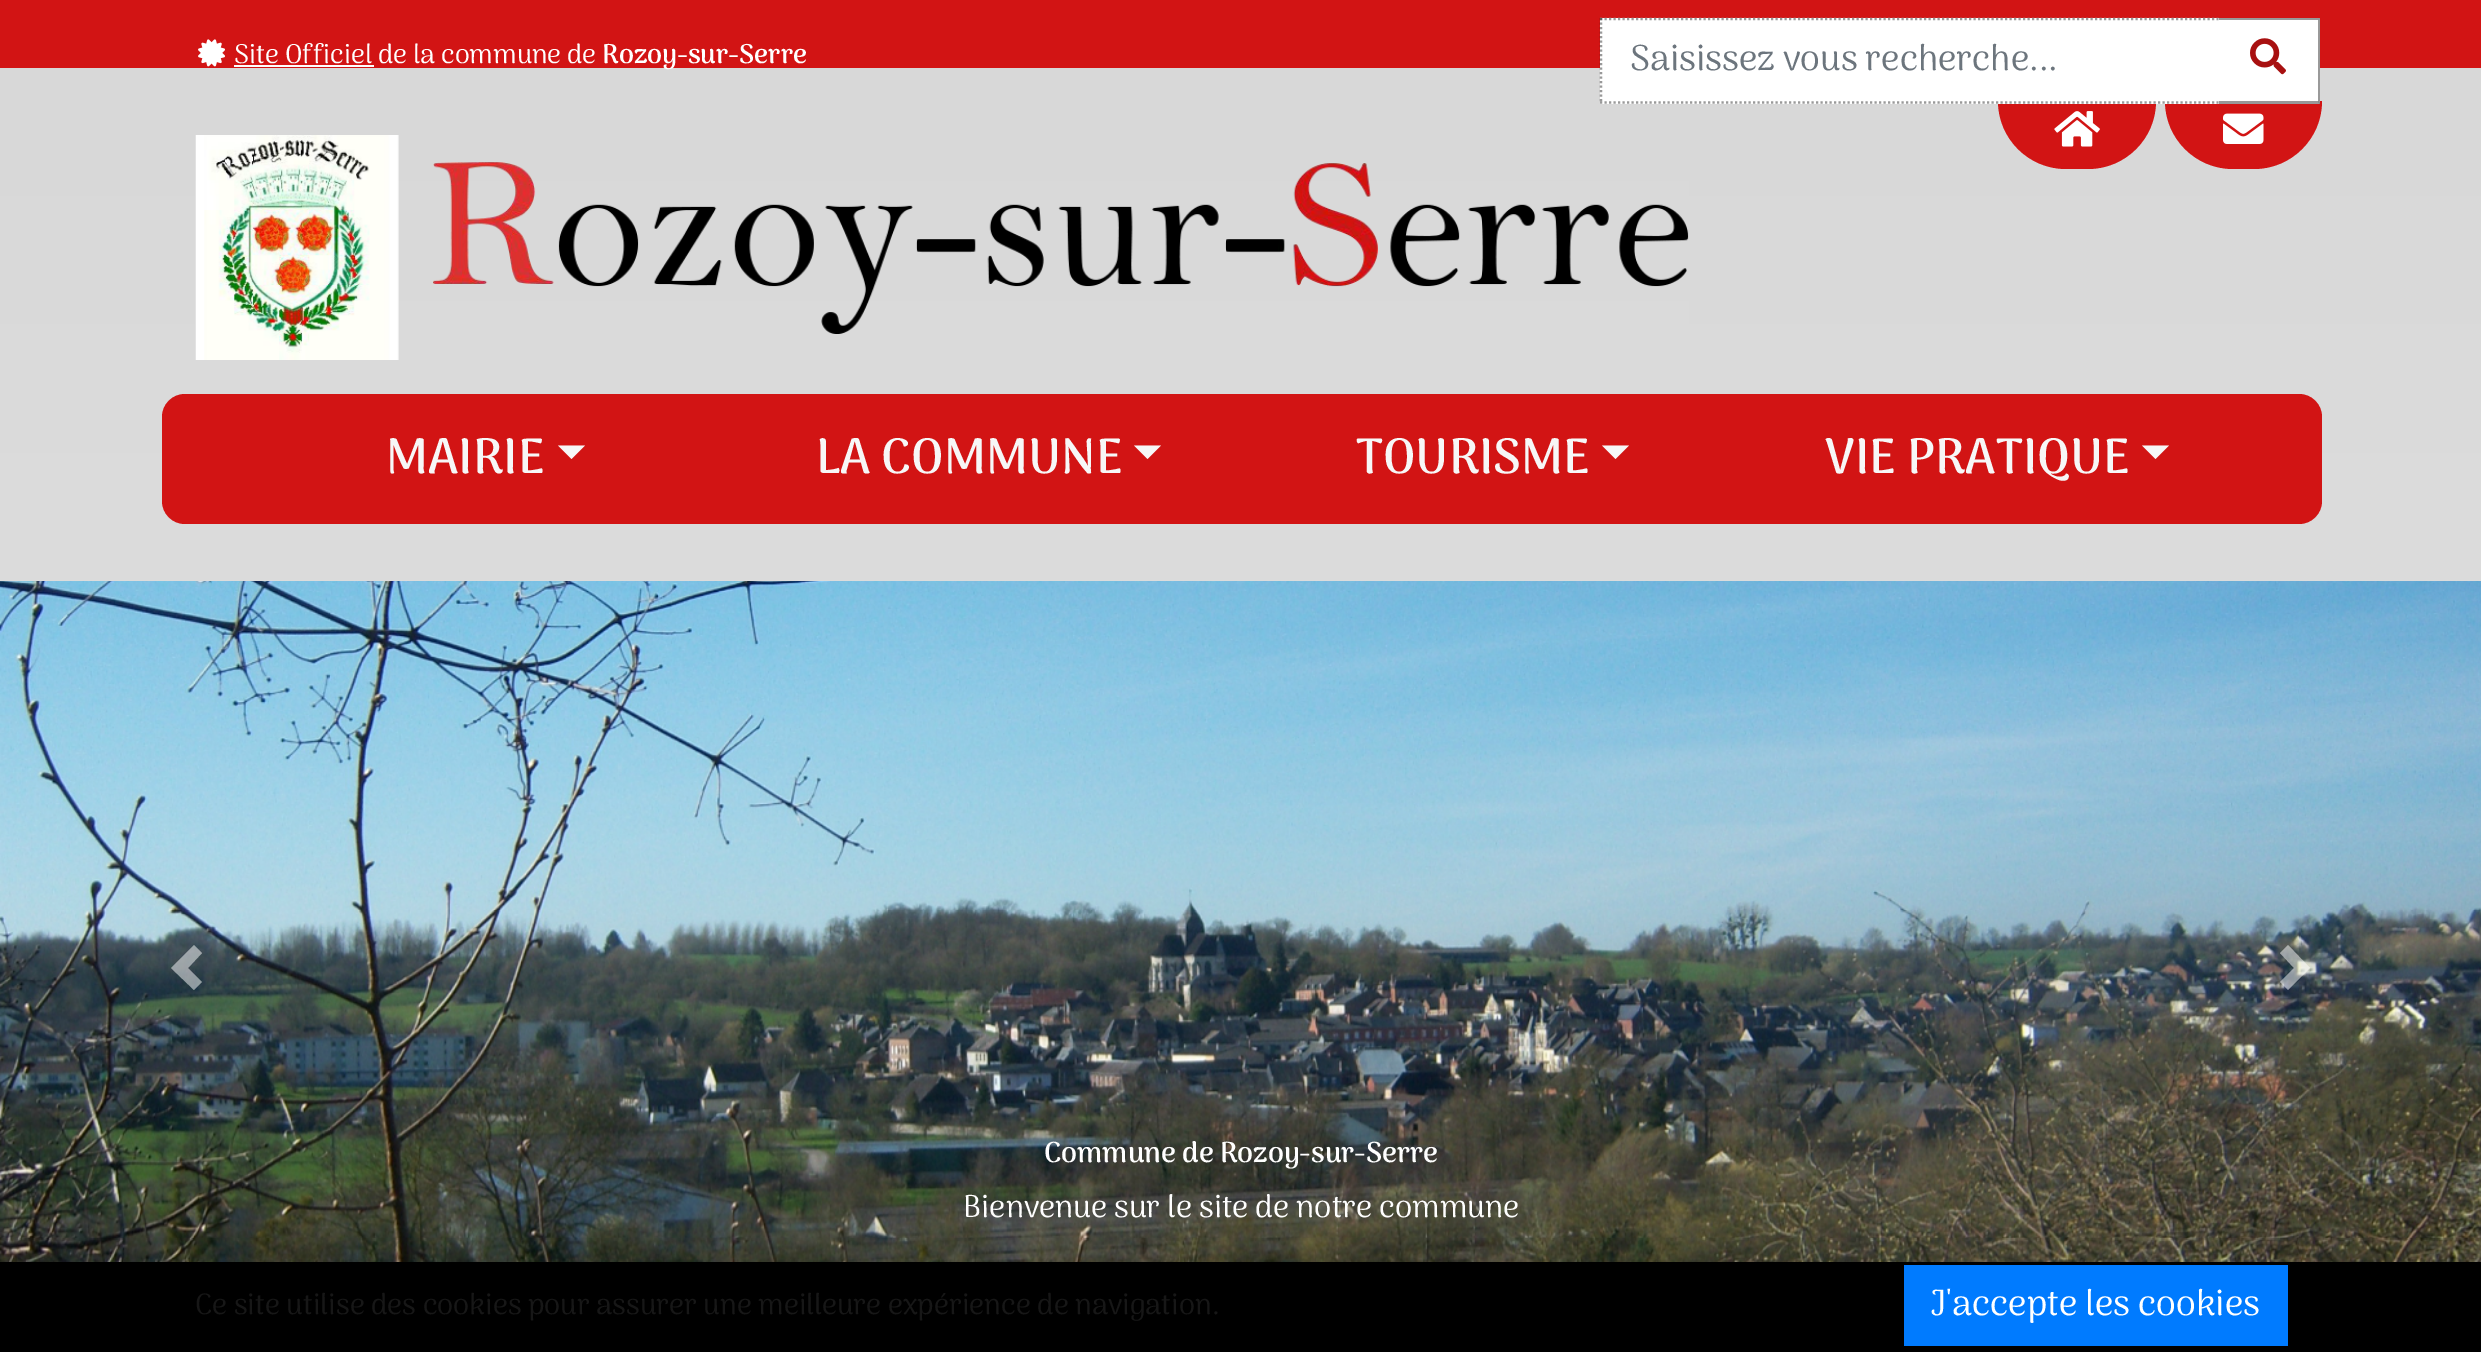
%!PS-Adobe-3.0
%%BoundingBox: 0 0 2481 1352
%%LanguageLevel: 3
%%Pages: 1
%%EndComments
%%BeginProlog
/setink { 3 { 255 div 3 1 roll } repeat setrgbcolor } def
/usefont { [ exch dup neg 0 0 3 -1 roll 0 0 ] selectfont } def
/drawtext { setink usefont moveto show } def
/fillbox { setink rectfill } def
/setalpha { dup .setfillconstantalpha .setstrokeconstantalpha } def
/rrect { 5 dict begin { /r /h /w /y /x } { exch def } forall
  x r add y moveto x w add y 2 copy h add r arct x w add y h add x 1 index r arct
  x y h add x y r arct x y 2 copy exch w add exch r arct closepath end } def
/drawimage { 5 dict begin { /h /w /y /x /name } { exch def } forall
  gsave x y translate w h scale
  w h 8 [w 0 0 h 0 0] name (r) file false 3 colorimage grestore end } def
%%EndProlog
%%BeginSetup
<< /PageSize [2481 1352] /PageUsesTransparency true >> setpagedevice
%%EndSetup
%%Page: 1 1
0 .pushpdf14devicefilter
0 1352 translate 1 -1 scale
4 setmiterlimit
0 0 2481 1352 255 255 255 fillbox
gsave 0 68 moveto 2481 68 lineto 2481 581 lineto 0 581 lineto closepath clip newpath
<< /ShadingType 2 /ColorSpace /DeviceRGB /Coords [1241 0 1241 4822] /Extend [true true] /Function << /FunctionType 2 /Domain [0 1] /C0 [0.843 0.843 0.843] /C1 [1 1 1] /N 1 >> >> shfill grestore
0 0 2481 68 210 20 20 fillbox
(assets/img1.rgb) 198 39 27 28 drawimage
(Site Officiel de la commune de) 234 63 /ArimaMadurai-Regular 27 255 255 255 drawtext
234 65 140 2 255 255 255 fillbox
(Rozoy-sur-Serre) 602 63 /ArimaMadurai-Bold 27 255 255 255 drawtext
210 20 20 setink
2165 101 moveto 2322 101 lineto 2322 138.5 2291.5 169 2254 169 curveto 2233 169 lineto 2195.5 169 2165 138.5 2165 101 curveto closepath fill
2219 18 101 86 255 255 255 fillbox
0.4 setalpha
0 0 0 setink
2218 18 moveto 2320 18 lineto 2318 20 lineto 2218 20 lineto closepath fill
2320 18 moveto 2320 104 lineto 2318 101 lineto 2318 20 lineto closepath fill
2320 104 moveto 2218 104 lineto 2218 101 lineto 2318 101 lineto closepath fill
1 setalpha
210 20 20 setink
1998 101 moveto 2156 101 lineto 2156 138.5 2125.5 169 2088 169 curveto 2066 169 lineto 2028.5 169 1998 138.5 1998 101 curveto closepath fill
1600 18 619 86 255 255 255 fillbox
153 153 153 setink
2.2 setlinewidth
[2.25 2.25] 0 setdash
1600 19 moveto 2218.5 19 lineto stroke
1600 102.5 moveto 2218.5 102.5 lineto stroke
0.4 setalpha
0 0 0 setink
1601 18 moveto 1601 103.5 lineto stroke
1 setalpha
(Saisissez vous recherche...) 1630 70 /ArimaMadurai-Regular 36 108 117 125 drawtext
(assets/img2.rgb) 2250 38 36 37 drawimage
(assets/img3.rgb) 195 135 1494 225 drawimage
(assets/img4.rgb) 2054 111 46 36 drawimage
(assets/img5.rgb) 2223 113 41 31 drawimage
210 20 20 setink
162 394 2160 130 23 rrect fill
(MAIRIE) 386 473 /ArimaMadurai-Bold 49.5 247 247 247 drawtext
558 445.5 moveto 585 445.5 lineto 571.5 459 lineto closepath fill
(LA COMMUNE) 816 473 /ArimaMadurai-Bold 49.5 247 247 247 drawtext
1134 445.5 moveto 1161 445.5 lineto 1147.5 459 lineto closepath fill
(TOURISME) 1356 473 /ArimaMadurai-Bold 49.5 247 247 247 drawtext
1602 445.5 moveto 1629 445.5 lineto 1615.5 459 lineto closepath fill
(VIE PRATIQUE) 1825 473 /ArimaMadurai-Bold 49.5 247 247 247 drawtext
2142 445.5 moveto 2169 445.5 lineto 2155.5 459 lineto closepath fill
(assets/img6.rgb) 0 581 2481 681 drawimage
0.5 setalpha
255 255 255 setink
194 945 moveto 171 968 lineto 194 990 lineto 202 982 lineto 188 968 lineto 202 953 lineto closepath fill
2288 945 moveto 2280 953 lineto 2294 968 lineto 2280 982 lineto 2288 990 lineto 2310 968 lineto closepath fill
1 setalpha
(Commune de Rozoy-sur-Serre) 1044 1162 /ArimaMadurai-Bold 28.75 255 255 255 drawtext
(Bienvenue sur le site de notre commune) 963 1217 /ArimaMadurai-Regular 31.5 255 255 255 drawtext
0 1262 2481 90 0 0 0 fillbox
(Ce site utilise des cookies pour assurer une meilleure expérience de navigation.) 195 1314 /ArimaMadurai-Regular 29.25 23 23 23 drawtext
1904 1265 384 81 0 123 255 fillbox
(J'accepte les cookies) 1930 1315 /ArimaMadurai-Regular 36 255 255 255 drawtext
.poppdf14devicefilter showpage
%%EOF
